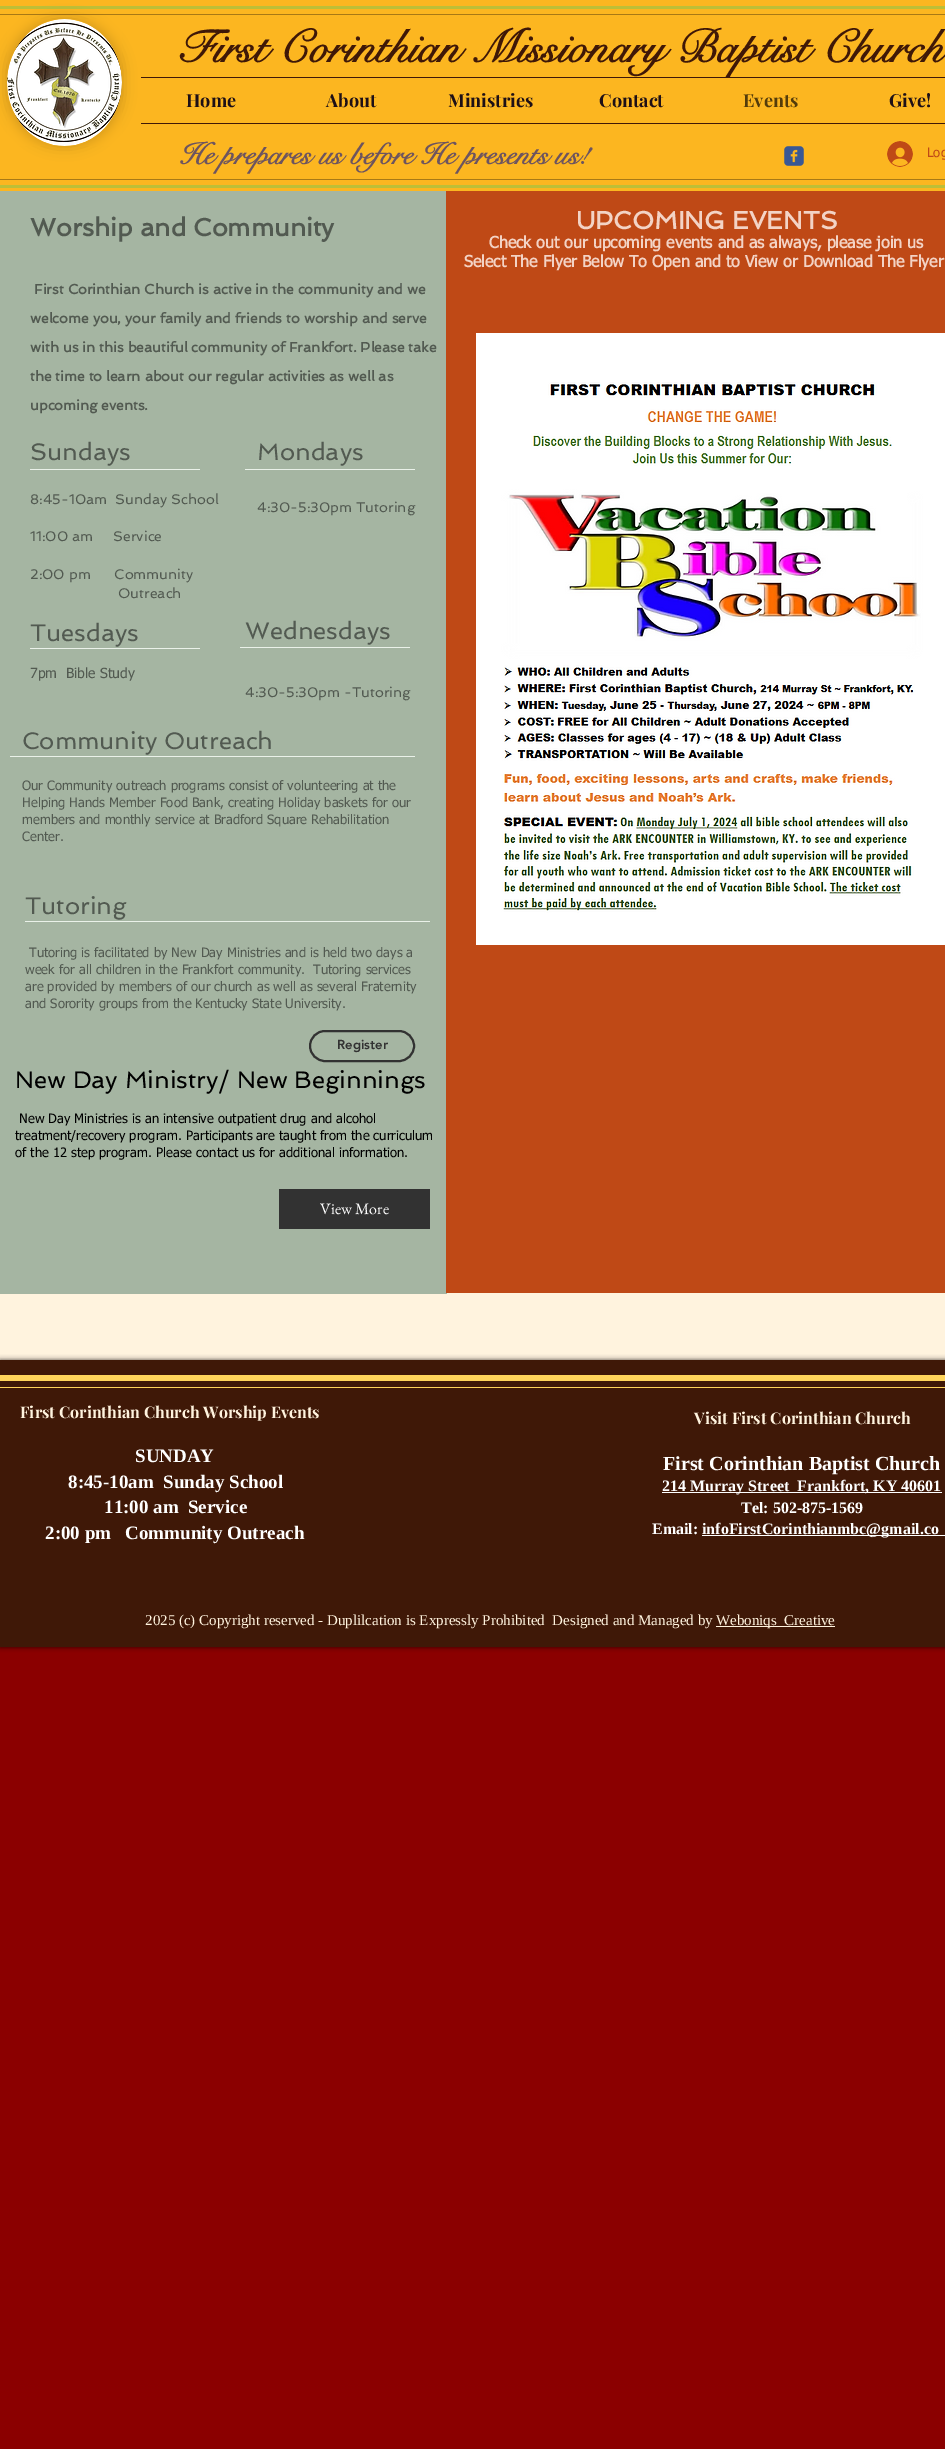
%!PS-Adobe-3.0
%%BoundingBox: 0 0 945 2449
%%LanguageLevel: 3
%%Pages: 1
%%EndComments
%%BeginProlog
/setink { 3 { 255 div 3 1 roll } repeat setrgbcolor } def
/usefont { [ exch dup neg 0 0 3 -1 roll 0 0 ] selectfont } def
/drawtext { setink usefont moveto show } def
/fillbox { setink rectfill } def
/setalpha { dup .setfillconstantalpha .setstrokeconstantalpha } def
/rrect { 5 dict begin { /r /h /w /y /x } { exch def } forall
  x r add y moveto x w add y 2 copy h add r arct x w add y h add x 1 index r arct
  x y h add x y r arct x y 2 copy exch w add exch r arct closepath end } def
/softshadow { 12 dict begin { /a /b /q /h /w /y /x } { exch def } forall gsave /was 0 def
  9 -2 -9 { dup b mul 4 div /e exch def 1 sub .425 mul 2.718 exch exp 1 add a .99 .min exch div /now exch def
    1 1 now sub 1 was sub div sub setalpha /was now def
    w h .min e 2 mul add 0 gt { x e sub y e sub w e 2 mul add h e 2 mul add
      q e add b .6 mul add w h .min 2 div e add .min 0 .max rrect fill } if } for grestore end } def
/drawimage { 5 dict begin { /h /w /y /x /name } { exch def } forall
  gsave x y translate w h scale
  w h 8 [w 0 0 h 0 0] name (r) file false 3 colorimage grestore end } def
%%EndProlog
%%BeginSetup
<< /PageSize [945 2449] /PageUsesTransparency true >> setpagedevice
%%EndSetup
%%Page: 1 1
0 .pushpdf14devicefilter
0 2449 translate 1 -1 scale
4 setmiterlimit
0 0 945 2449 139 0 0 fillbox
0 0 945 191 252 182 32 fillbox
0 6 945 3 189 191 55 fillbox
0 185 945 3 189 191 55 fillbox
0 14 945 1 168 121 21 fillbox
0 179 945 1 168 121 21 fillbox
0 0 0 setink
7 19 115 127 57.5 7 0.2 softshadow
(assets/img1.rgb) 7 19 115 127 drawimage
(First Corinthian Missionary Baptist Church) 177 62 /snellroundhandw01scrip-Bold 46 63 24 7 drawtext
141 77 804 1 63 24 7 fillbox
141 123 804 1 63 24 7 fillbox
(Home) 186 107 /PlayfairDisplay-Bold 18 30 16 22 drawtext
(About) 326 107 /PlayfairDisplay-Bold 18 30 16 22 drawtext
(Ministries) 448 107 /PlayfairDisplay-Bold 18 30 16 22 drawtext
(Contact) 599 107 /PlayfairDisplay-Bold 18 30 16 22 drawtext
(Events) 743 107 /PlayfairDisplay-Bold 18 84 60 10 drawtext
(Give!) 889 107 /PlayfairDisplay-Bold 18 30 16 22 drawtext
(He prepares us before He presents us!) 179 164 /snellroundhandw01scrip-Bold 30 109 84 95 drawtext
(assets/img2.rgb) 784 146 20 20 drawimage
(assets/img3.rgb) 887 141 26 26 drawimage
(Log) 927 157 /tahoma-Regular 13 191 73 22 drawtext
0 1293 945 67 255 243 222 fillbox
0 191 447 1103 165 181 162 fillbox
(Worship and Community) 30 236 /Spinnaker-Bold 25 82 90 81 drawtext
(First Corinthian Church is active in the community and we) 34 294 /Spinnaker-Bold 14 82 90 81 drawtext
(welcome you, your family and friends to worship and serve) 30 323 /Spinnaker-Bold 14 82 90 81 drawtext
(with us in this beautiful community of Frankfort. Please take) 30 352 /Spinnaker-Bold 14 82 90 81 drawtext
(the time to learn about our regular activities as well as) 30 381 /Spinnaker-Bold 14 82 90 81 drawtext
(upcoming events.) 30 410 /Spinnaker-Bold 14 82 90 81 drawtext
(Sundays) 30 460 /Spinnaker-Regular 24 82 90 81 drawtext
(8:45-10am  Sunday School) 30 504 /Spinnaker-Regular 14 82 90 81 drawtext
(11:00 am     Service) 30 541 /Spinnaker-Regular 14 82 90 81 drawtext
(2:00 pm      Community) 30 579 /Spinnaker-Regular 14 82 90 81 drawtext
(Outreach) 118 598 /Spinnaker-Regular 14 82 90 81 drawtext
(Mondays) 257 460 /Spinnaker-Regular 24 82 90 81 drawtext
(4:30-5:30pm Tutoring) 257 512 /Spinnaker-Regular 14 82 90 81 drawtext
30 469 170 1 234 241 233 fillbox
245 469 170 1 234 241 233 fillbox
(Tuesdays) 30 641 /Spinnaker-Regular 24 82 90 81 drawtext
(7pm  Bible Study) 30 678 /tahoma-Regular 14 82 90 81 drawtext
(Wednesdays) 245 639 /Spinnaker-Regular 24 82 90 81 drawtext
(4:30-5:30pm -Tutoring) 245 697 /Spinnaker-Regular 14 82 90 81 drawtext
240 647 170 1 234 241 233 fillbox
30 648 170 1 234 241 233 fillbox
(Community Outreach) 22 749 /Spinnaker-Regular 24 82 90 81 drawtext
(Our Community outreach programs consist of volunteering at the) 22 790 /tahoma-Regular 13 82 90 81 drawtext
(Helping Hands Member Food Bank, creating Holiday baskets for our) 22 807 /tahoma-Regular 13 82 90 81 drawtext
(members and monthly service at Bradford Square Rehabilitation) 22 824 /tahoma-Regular 13 82 90 81 drawtext
(Center.) 22 841 /tahoma-Regular 13 82 90 81 drawtext
10 756 405 1 234 241 233 fillbox
(Tutoring) 25 914 /Spinnaker-Regular 24 82 90 81 drawtext
(Tutoring is facilitated by New Day Ministries and is held two days a) 29 957 /tahoma-Regular 13 82 90 81 drawtext
(week for all children in the Frankfort community.  Tutoring services) 25 974 /tahoma-Regular 13 82 90 81 drawtext
(are provided by members of our church as well as several Fraternity) 25 991 /tahoma-Regular 13 82 90 81 drawtext
(and Sorority groups from the Kentucky State University.) 25 1008 /tahoma-Regular 13 82 90 81 drawtext
25 921 405 1 234 241 233 fillbox
50 50 50 setink
2 setlinewidth
310 1031 104 30 15 rrect stroke
(Register) 337 1049 /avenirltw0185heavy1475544-Black 13 50 50 50 drawtext
279 1189 151 40 50 50 50 fillbox
(View More) 320 1214 /EBGaramond-Regular 16 255 255 255 drawtext
446 191 499 1102 191 73 22 fillbox
(UPCOMING EVENTS) 576 229 /Spinnaker-Bold 25 243 211 197 drawtext
(Check out our upcoming events and as always, please join us) 489 248 /tahoma-Bold 16 243 211 197 drawtext
(Select The Flyer Below To Open and to View or Download The Flyer) 464 267 /tahoma-Bold 16 243 211 197 drawtext
(assets/img4.rgb) 476 333 469 612 drawimage
(New Day Ministry/ New Beginnings) 15 1088 /Spinnaker-Regular 24 0 0 0 drawtext
(New Day Ministries is an intensive outpatient drug and alcohol) 19 1123 /tahoma-Regular 13 0 0 0 drawtext
(treatment/recovery program. Participants are taught from the curriculum) 15 1140 /tahoma-Regular 13 0 0 0 drawtext
(of the 12 step program. Please contact us for additional information.) 15 1157 /tahoma-Regular 13 0 0 0 drawtext
0 1360 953 287 0 2.5 0.7 softshadow
0 1360 945 287 63 24 7 fillbox
0 1375 945 6 255 212 90 fillbox
0 1387 945 1 255 212 90 fillbox
(First Corinthian Church Worship Events) 20 1418 /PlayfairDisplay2-Bold 16 255 243 222 drawtext
(SUNDAY) 135 1462 /LiberationSerif-Bold 19 255 255 255 drawtext
(8:45-10am  Sunday School) 68 1488 /LiberationSerif-Bold 19 255 255 255 drawtext
(11:00 am  Service) 104 1513 /LiberationSerif-Bold 19 255 255 255 drawtext
(2:00 pm   Community Outreach) 45 1539 /LiberationSerif-Bold 19 255 255 255 drawtext
(Visit First Corinthian Church) 694 1424 /PlayfairDisplay2-Bold 16 255 243 222 drawtext
(First Corinthian Baptist Church) 663 1470 /LiberationSerif-Bold 20 255 255 255 drawtext
662 1492 280 1 255 255 255 fillbox
(214 Murray Street  Frankfort, KY 40601) 662 1491 /LiberationSerif-Bold 16 255 255 255 drawtext
(Tel: 502-875-1569) 741 1513 /LiberationSerif-Bold 16 255 255 255 drawtext
(Email:) 652 1534 /LiberationSerif-Bold 16 255 255 255 drawtext
702 1535 243 1 255 255 255 fillbox
(infoFirstCorinthianmbc@gmail.co) 702 1534 /LiberationSerif-Bold 16 255 255 255 drawtext
(2025 \(c\) Copyright reserved - Duplilcation is Expressly Prohibited  Designed and Managed by) 145 1625 /LiberationSerif-Regular 15 255 243 222 drawtext
716 1626 119 1 255 243 222 fillbox
(Weboniqs_Creative) 716 1625 /LiberationSerif-Regular 15 255 243 222 drawtext
.poppdf14devicefilter showpage
%%EOF
